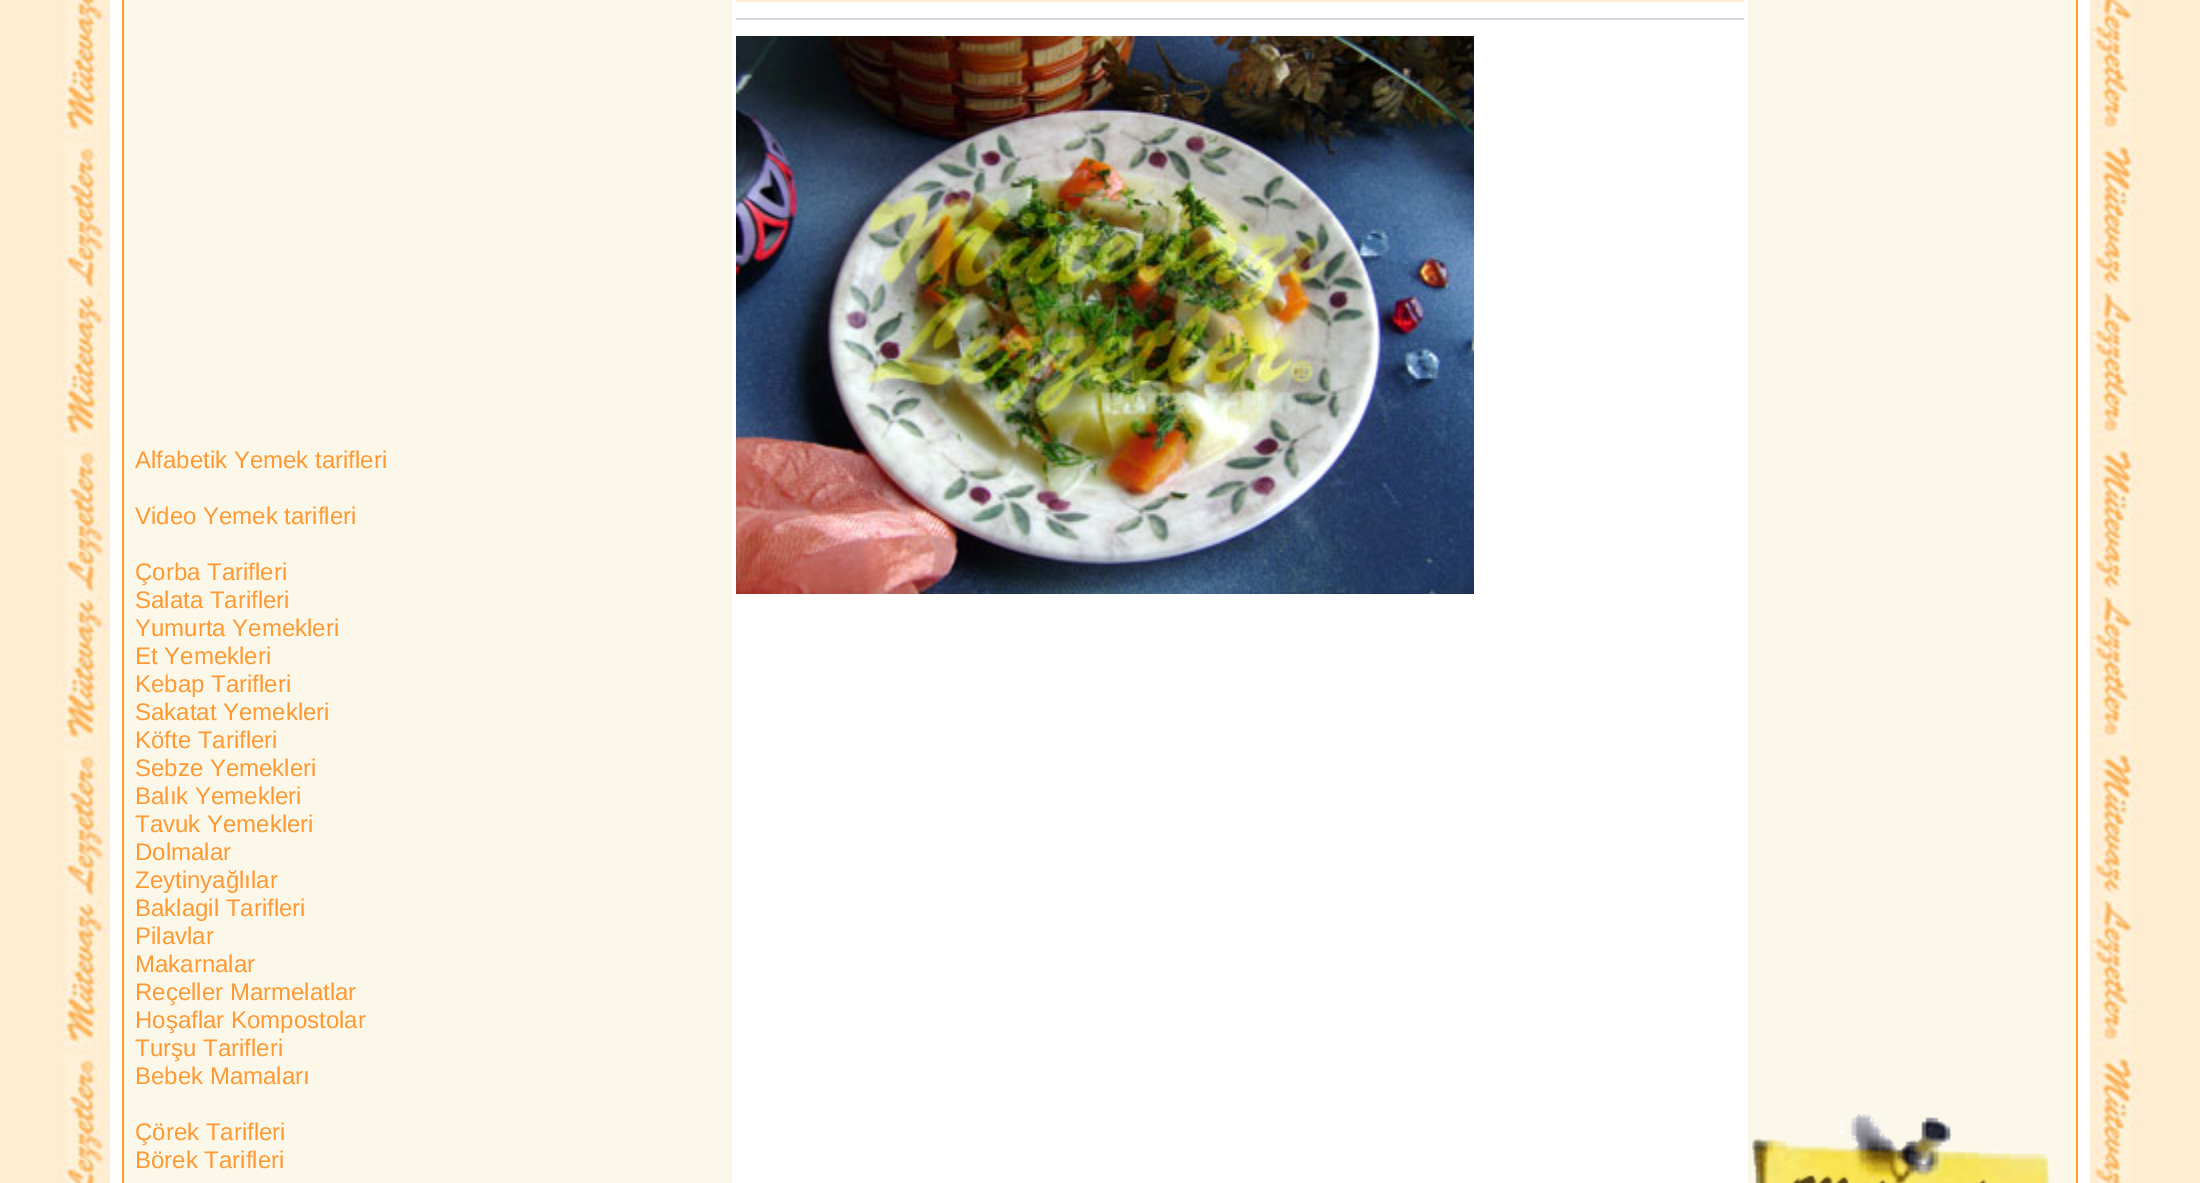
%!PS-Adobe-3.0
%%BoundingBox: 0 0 2200 1183
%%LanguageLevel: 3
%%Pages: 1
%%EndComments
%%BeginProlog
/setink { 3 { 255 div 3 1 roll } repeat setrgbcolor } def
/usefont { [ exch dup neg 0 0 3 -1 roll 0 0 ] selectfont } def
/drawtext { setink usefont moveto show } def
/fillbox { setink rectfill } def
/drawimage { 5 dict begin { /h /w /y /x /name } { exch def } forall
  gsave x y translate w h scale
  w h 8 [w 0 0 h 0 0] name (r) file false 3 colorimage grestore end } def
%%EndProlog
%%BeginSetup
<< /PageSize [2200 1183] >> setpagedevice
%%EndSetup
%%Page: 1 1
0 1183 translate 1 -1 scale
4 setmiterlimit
0 0 2200 1183 254 237 209 fillbox
(assets/img1.rgb) 59 0 2081 1183 drawimage
110 0 1980 1183 255 255 255 fillbox
2076 0 2 1183 255 153 51 fillbox
122 0 2 1183 255 153 51 fillbox
124 0 608 1183 252 248 233 fillbox
(Alfabetik Yemek tarifleri) 135 468 /LiberationSans-Regular 24 255 153 51 drawtext
(Video Yemek tarifleri) 135 524 /LiberationSans-Regular 24 255 153 51 drawtext
(Çorba Tarifleri) 135 580 /LiberationSans-Regular 24 255 153 51 drawtext
(Salata Tarifleri) 135 608 /LiberationSans-Regular 24 255 153 51 drawtext
(Yumurta Yemekleri) 135 636 /LiberationSans-Regular 24 255 153 51 drawtext
(Et Yemekleri) 135 664 /LiberationSans-Regular 24 255 153 51 drawtext
(Kebap Tarifleri) 135 692 /LiberationSans-Regular 24 255 153 51 drawtext
(Sakatat Yemekleri) 135 720 /LiberationSans-Regular 24 255 153 51 drawtext
(Köfte Tarifleri) 135 748 /LiberationSans-Regular 24 255 153 51 drawtext
(Sebze Yemekleri) 135 776 /LiberationSans-Regular 24 255 153 51 drawtext
(Balık Yemekleri) 135 804 /LiberationSans-Regular 24 255 153 51 drawtext
(Tavuk Yemekleri) 135 832 /LiberationSans-Regular 24 255 153 51 drawtext
(Dolmalar) 135 860 /LiberationSans-Regular 24 255 153 51 drawtext
(Zeytinyağlılar) 135 888 /LiberationSans-Regular 24 255 153 51 drawtext
(Baklagil Tarifleri) 135 916 /LiberationSans-Regular 24 255 153 51 drawtext
(Pilavlar) 135 944 /LiberationSans-Regular 24 255 153 51 drawtext
(Makarnalar) 135 972 /LiberationSans-Regular 24 255 153 51 drawtext
(Reçeller Marmelatlar) 135 1000 /LiberationSans-Regular 24 255 153 51 drawtext
(Hoşaflar Kompostolar) 135 1028 /LiberationSans-Regular 24 255 153 51 drawtext
(Turşu Tarifleri) 135 1056 /LiberationSans-Regular 24 255 153 51 drawtext
(Bebek Mamaları) 135 1084 /LiberationSans-Regular 24 255 153 51 drawtext
(Çörek Tarifleri) 135 1140 /LiberationSans-Regular 24 255 153 51 drawtext
(Börek Tarifleri) 135 1168 /LiberationSans-Regular 24 255 153 51 drawtext
736 0 1008 2 254 237 209 fillbox
736 18 1008 2 209 215 220 fillbox
(assets/img2.rgb) 736 36 738 558 drawimage
1748 0 328 1183 252 248 233 fillbox
(assets/img3.rgb) 1752 1114 299 69 drawimage
showpage
%%EOF
